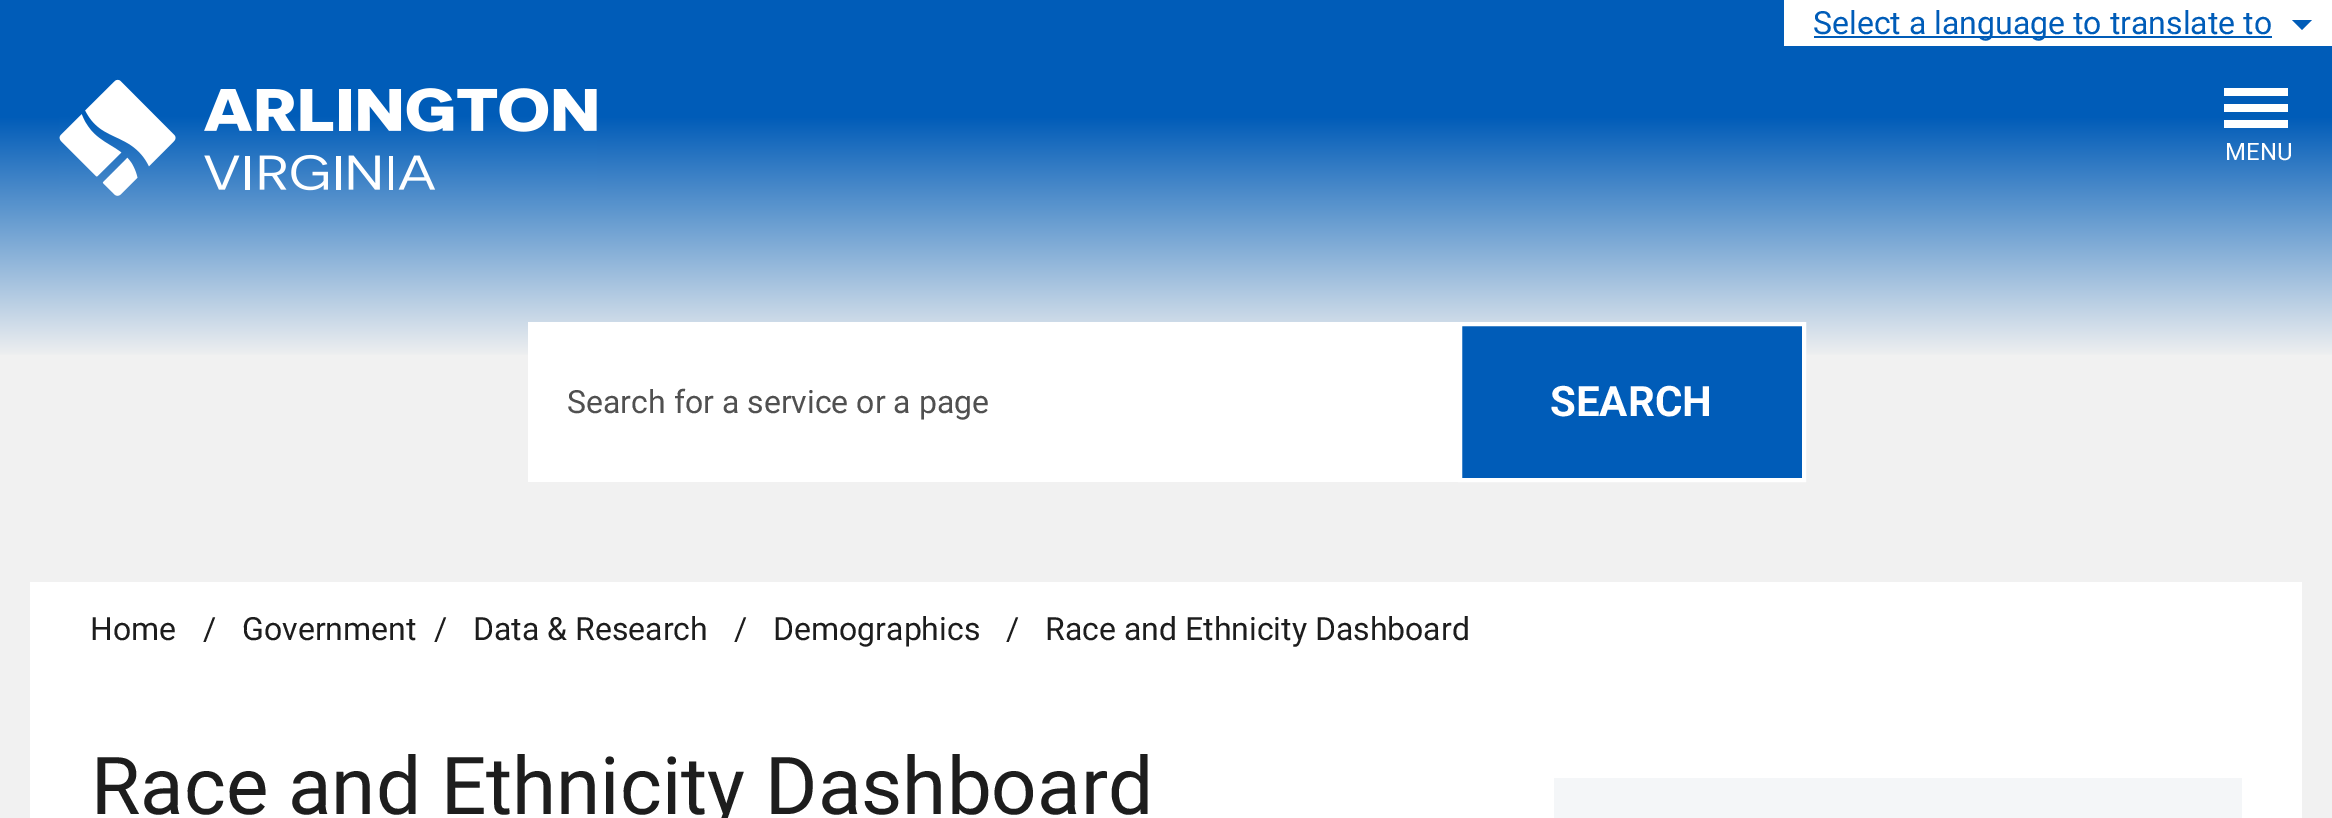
%!PS-Adobe-3.0
%%BoundingBox: 0 0 2332 818
%%LanguageLevel: 3
%%Pages: 1
%%EndComments
%%BeginProlog
/setink { 3 { 255 div 3 1 roll } repeat setrgbcolor } def
/usefont { [ exch dup neg 0 0 3 -1 roll 0 0 ] selectfont } def
/drawtext { setink usefont moveto show } def
/fillbox { setink rectfill } def
/drawimage { 5 dict begin { /h /w /y /x /name } { exch def } forall
  gsave x y translate w h scale
  w h 8 [w 0 0 h 0 0] name (r) file false 3 colorimage grestore end } def
%%EndProlog
%%BeginSetup
<< /PageSize [2332 818] >> setpagedevice
%%EndSetup
%%Page: 1 1
0 818 translate 1 -1 scale
4 setmiterlimit
0 0 2332 818 241 241 241 fillbox
0 0 2332 48 0 92 184 fillbox
1784 0 548 46 255 255 255 fillbox
1814 36 458 2 0 92 184 fillbox
(Select a language to translate to) 1813 34 /Roboto-Regular 32 0 92 184 drawtext
2292 20 moveto 2312 20 lineto 2302 30 lineto closepath fill
gsave 0 48 moveto 2332 48 lineto 2332 355 lineto 0 355 lineto closepath clip newpath
<< /ShadingType 2 /ColorSpace /DeviceRGB /Coords [1166 48 1166 502] /Extend [true true] /Function << /FunctionType 3 /Domain [0 1] /Functions [<< /FunctionType 2 /Domain [0 1] /C0 [0 0.361 0.722] /C1 [0 0.361 0.722] /N 1 >> << /FunctionType 2 /Domain [0 1] /C0 [0 0.361 0.722] /C1 [0.941 0.941 0.941] /N 1 >> << /FunctionType 2 /Domain [0 1] /C0 [0.941 0.941 0.941] /C1 [0.941 0.941 0.941] /N 1 >>] /Bounds [0.15 0.68] /Encode [0 1 0 1 0 1] >> >> shfill grestore
2224 104 64 8 255 255 255 fillbox
2224 88 64 8 255 255 255 fillbox
2224 120 64 8 255 255 255 fillbox
(MENU) 2225 160 /Roboto-Regular 24 255 255 255 drawtext
(assets/img1.rgb) 59 79 538 117 drawimage
528 322 930 160 255 255 255 fillbox
(Search for a service or a page) 567 413 /Roboto-Regular 32 80 80 80 drawtext
0 92 184 setink
1460 324 moveto 1804 324 lineto 1804 480 lineto 1460 480 lineto closepath gsave fill grestore
255 255 255 setink
4 setlinewidth
stroke
(SEARCH) 1550 416 /Roboto-Bold 42 255 255 255 drawtext
30 582 2272 236 255 255 255 fillbox
(Home) 90 640 /Roboto-Regular 32 29 29 29 drawtext
(/) 203 640 /Roboto-Regular 32 29 29 29 drawtext
(Government) 242 640 /Roboto-Regular 32 29 29 29 drawtext
(/) 434 640 /Roboto-Regular 32 29 29 29 drawtext
(Data & Research) 473 640 /Roboto-Regular 32 29 29 29 drawtext
(/) 734 640 /Roboto-Regular 32 29 29 29 drawtext
(Demographics) 773 640 /Roboto-Regular 32 29 29 29 drawtext
(/) 1006 640 /Roboto-Regular 32 29 29 29 drawtext
(Race and Ethnicity Dashboard) 1045 640 /Roboto-Regular 32 29 29 29 drawtext
(Race and Ethnicity Dashboard) 91 814 /Roboto-Regular 80 29 29 29 drawtext
1554 778 688 40 244 246 248 fillbox
showpage
%%EOF
